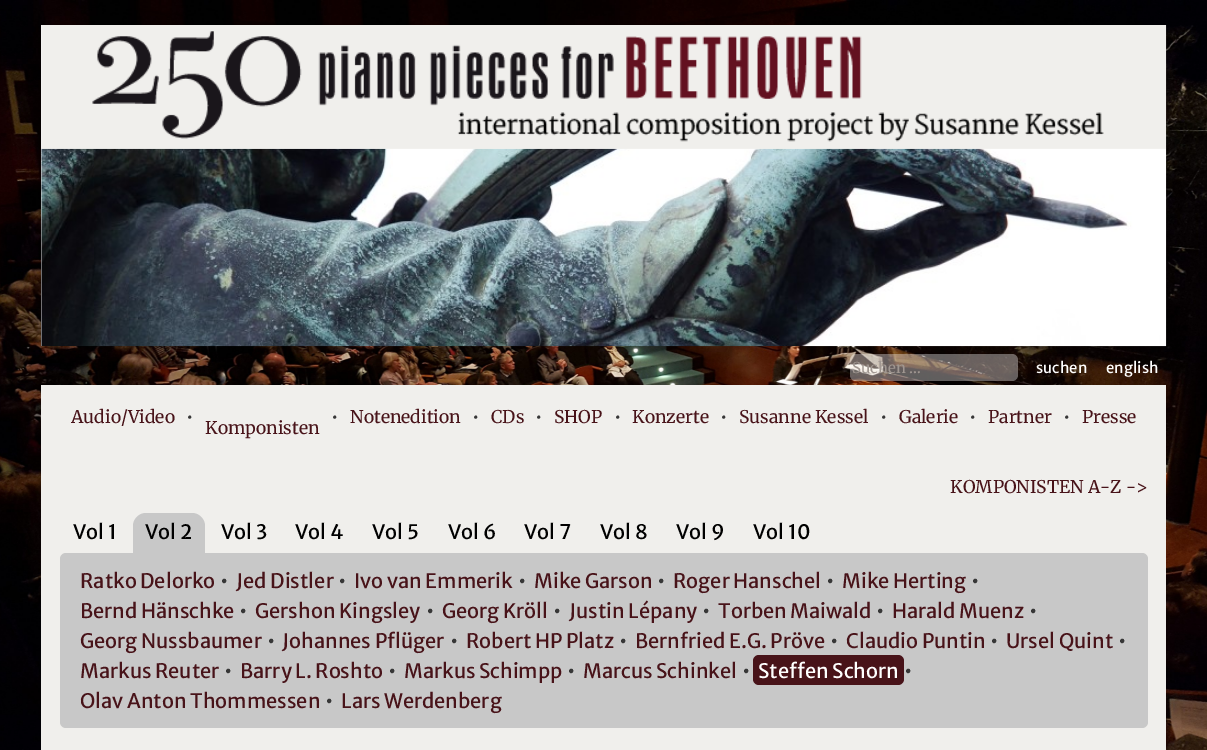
%!PS-Adobe-3.0
%%BoundingBox: 0 0 1207 750
%%LanguageLevel: 3
%%Pages: 1
%%EndComments
%%BeginProlog
/setink { 3 { 255 div 3 1 roll } repeat setrgbcolor } def
/usefont { [ exch dup neg 0 0 3 -1 roll 0 0 ] selectfont } def
/drawtext { setink usefont moveto show } def
/fillbox { setink rectfill } def
/setalpha { dup .setfillconstantalpha .setstrokeconstantalpha } def
/rrect { 5 dict begin { /r /h /w /y /x } { exch def } forall
  x r add y moveto x w add y 2 copy h add r arct x w add y h add x 1 index r arct
  x y h add x y r arct x y 2 copy exch w add exch r arct closepath end } def
/drawimage { 5 dict begin { /h /w /y /x /name } { exch def } forall
  gsave x y translate w h scale
  w h 8 [w 0 0 h 0 0] name (r) file false 3 colorimage grestore end } def
%%EndProlog
%%BeginSetup
<< /PageSize [1207 750] /PageUsesTransparency true >> setpagedevice
%%EndSetup
%%Page: 1 1
0 .pushpdf14devicefilter
0 750 translate 1 -1 scale
4 setmiterlimit
0 0 1207 750 255 255 255 fillbox
(assets/img1.rgb) 0 0 1207 750 drawimage
41 25 1125 321 248 246 247 fillbox
(assets/img3.rgb) 41 148 1126 199 drawimage
(assets/img2.rgb) 41 25 1126 124 drawimage
0.37 setalpha
255 255 255 setink
850 354 168 27 6 rrect fill
1 setalpha
(Suchen …) 852 373 /Merriweather-Regular 15 160 151 145 drawtext
(suchen) 1036 373 /MerriweatherSans-Regular 15 255 255 255 drawtext
(english) 1106 373 /MerriweatherSans-Regular 15 255 255 255 drawtext
41 385 1125 365 240 239 236 fillbox
(Audio/Video) 71 423 /Merriweather-Regular 17.5 72 19 25 drawtext
(•) 186 423 /Merriweather-Regular 17.5 55 55 55 drawtext
(•) 331 423 /Merriweather-Regular 17.5 55 55 55 drawtext
(Komponisten) 205 434 /Merriweather-Regular 17.5 72 19 25 drawtext
(Notenedition) 350 423 /Merriweather-Regular 17.5 72 19 25 drawtext
(•) 472 423 /Merriweather-Regular 17.5 55 55 55 drawtext
(CDs) 491 423 /Merriweather-Regular 17.5 72 19 25 drawtext
(•) 535 423 /Merriweather-Regular 17.5 55 55 55 drawtext
(SHOP) 554 423 /Merriweather-Regular 17.5 72 19 25 drawtext
(•) 614 423 /Merriweather-Regular 17.5 55 55 55 drawtext
(Konzerte) 632 423 /Merriweather-Regular 17.5 72 19 25 drawtext
(•) 720 423 /Merriweather-Regular 17.5 55 55 55 drawtext
(Susanne Kessel) 739 423 /Merriweather-Regular 17.5 72 19 25 drawtext
(•) 880 423 /Merriweather-Regular 17.5 55 55 55 drawtext
(Galerie) 899 423 /Merriweather-Regular 17.5 72 19 25 drawtext
(•) 969 423 /Merriweather-Regular 17.5 55 55 55 drawtext
(Partner) 988 423 /Merriweather-Regular 17.5 72 19 25 drawtext
(•) 1063 423 /Merriweather-Regular 17.5 55 55 55 drawtext
(Presse) 1082 423 /Merriweather-Regular 17.5 72 19 25 drawtext
(KOMPONISTEN A-Z ->) 950 493 /Merriweather-Regular 17.5 72 19 25 drawtext
(Vol 1) 73 539 /MerriweatherSans-Regular 20 0 0 0 drawtext
200 200 200 setink
60 553 1088 175 6 rrect fill
146 513 moveto 192 513 lineto 199 513 205 519 205 526 curveto 205 559 lineto 133 559 lineto 133 526 lineto 133 519 139 513 146 513 curveto closepath fill
(Vol 2) 145 539 /MerriweatherSans-Regular 20 0 0 0 drawtext
(Vol 3) 221 539 /MerriweatherSans-Regular 20 0 0 0 drawtext
(Vol 4) 295 539 /MerriweatherSans-Regular 20 0 0 0 drawtext
(Vol 5) 372 539 /MerriweatherSans-Regular 20 0 0 0 drawtext
(Vol 6) 448 539 /MerriweatherSans-Regular 20 0 0 0 drawtext
(Vol 7) 524 539 /MerriweatherSans-Regular 20 0 0 0 drawtext
(Vol 8) 600 539 /MerriweatherSans-Regular 20 0 0 0 drawtext
(Vol 9) 676 539 /MerriweatherSans-Regular 20 0 0 0 drawtext
(Vol 10) 753 539 /MerriweatherSans-Regular 20 0 0 0 drawtext
(Ratko Delorko) 80 588 /MerriweatherSans-Regular 20 72 19 25 drawtext
(•) 220 588 /MerriweatherSans-Regular 20 55 55 55 drawtext
(Jed Distler) 236 588 /MerriweatherSans-Regular 20 72 19 25 drawtext
(•) 338 588 /MerriweatherSans-Regular 20 55 55 55 drawtext
(Ivo van Emmerik) 354 588 /MerriweatherSans-Regular 20 72 19 25 drawtext
(•) 518 588 /MerriweatherSans-Regular 20 55 55 55 drawtext
(Mike Garson) 534 588 /MerriweatherSans-Regular 20 72 19 25 drawtext
(•) 657 588 /MerriweatherSans-Regular 20 55 55 55 drawtext
(Roger Hanschel) 673 588 /MerriweatherSans-Regular 20 72 19 25 drawtext
(•) 826 588 /MerriweatherSans-Regular 20 55 55 55 drawtext
(Mike Herting) 842 588 /MerriweatherSans-Regular 20 72 19 25 drawtext
(•) 971 588 /MerriweatherSans-Regular 20 55 55 55 drawtext
(Bernd Hänschke) 80 618 /MerriweatherSans-Regular 20 72 19 25 drawtext
(•) 239 618 /MerriweatherSans-Regular 20 55 55 55 drawtext
(Gershon Kingsley) 255 618 /MerriweatherSans-Regular 20 72 19 25 drawtext
(•) 426 618 /MerriweatherSans-Regular 20 55 55 55 drawtext
(Georg Kröll) 442 618 /MerriweatherSans-Regular 20 72 19 25 drawtext
(•) 553 618 /MerriweatherSans-Regular 20 55 55 55 drawtext
(Justin Lépany) 569 618 /MerriweatherSans-Regular 20 72 19 25 drawtext
(•) 702 618 /MerriweatherSans-Regular 20 55 55 55 drawtext
(Torben Maiwald) 718 618 /MerriweatherSans-Regular 20 72 19 25 drawtext
(•) 876 618 /MerriweatherSans-Regular 20 55 55 55 drawtext
(Harald Muenz) 892 618 /MerriweatherSans-Regular 20 72 19 25 drawtext
(•) 1029 618 /MerriweatherSans-Regular 20 55 55 55 drawtext
(Georg Nussbaumer) 80 648 /MerriweatherSans-Regular 20 72 19 25 drawtext
(•) 267 648 /MerriweatherSans-Regular 20 55 55 55 drawtext
(Johannes Pflüger) 282 648 /MerriweatherSans-Regular 20 72 19 25 drawtext
(•) 450 648 /MerriweatherSans-Regular 20 55 55 55 drawtext
(Robert HP Platz) 466 648 /MerriweatherSans-Regular 20 72 19 25 drawtext
(•) 619 648 /MerriweatherSans-Regular 20 55 55 55 drawtext
(Bernfried E.G. Pröve) 635 648 /MerriweatherSans-Regular 20 72 19 25 drawtext
(•) 830 648 /MerriweatherSans-Regular 20 55 55 55 drawtext
(Claudio Puntin) 846 648 /MerriweatherSans-Regular 20 72 19 25 drawtext
(•) 990 648 /MerriweatherSans-Regular 20 55 55 55 drawtext
(Ursel Quint) 1006 648 /MerriweatherSans-Regular 20 72 19 25 drawtext
(•) 1118 648 /MerriweatherSans-Regular 20 55 55 55 drawtext
(Markus Reuter) 80 678 /MerriweatherSans-Regular 20 72 19 25 drawtext
(•) 224 678 /MerriweatherSans-Regular 20 55 55 55 drawtext
(Barry L. Roshto) 240 678 /MerriweatherSans-Regular 20 72 19 25 drawtext
(•) 388 678 /MerriweatherSans-Regular 20 55 55 55 drawtext
(Markus Schimpp) 404 678 /MerriweatherSans-Regular 20 72 19 25 drawtext
(•) 567 678 /MerriweatherSans-Regular 20 55 55 55 drawtext
(Marcus Schinkel) 583 678 /MerriweatherSans-Regular 20 72 19 25 drawtext
(•) 742 678 /MerriweatherSans-Regular 20 55 55 55 drawtext
72 19 25 setink
753 655 151 30 6 rrect fill
(Steffen Schorn) 758 678 /MerriweatherSans-Regular 20 255 255 255 drawtext
(•) 904 678 /MerriweatherSans-Regular 20 55 55 55 drawtext
(Olav Anton Thommessen) 80 708 /MerriweatherSans-Regular 20 72 19 25 drawtext
(•) 325 708 /MerriweatherSans-Regular 20 55 55 55 drawtext
(Lars Werdenberg) 341 708 /MerriweatherSans-Regular 20 72 19 25 drawtext
.poppdf14devicefilter showpage
%%EOF
